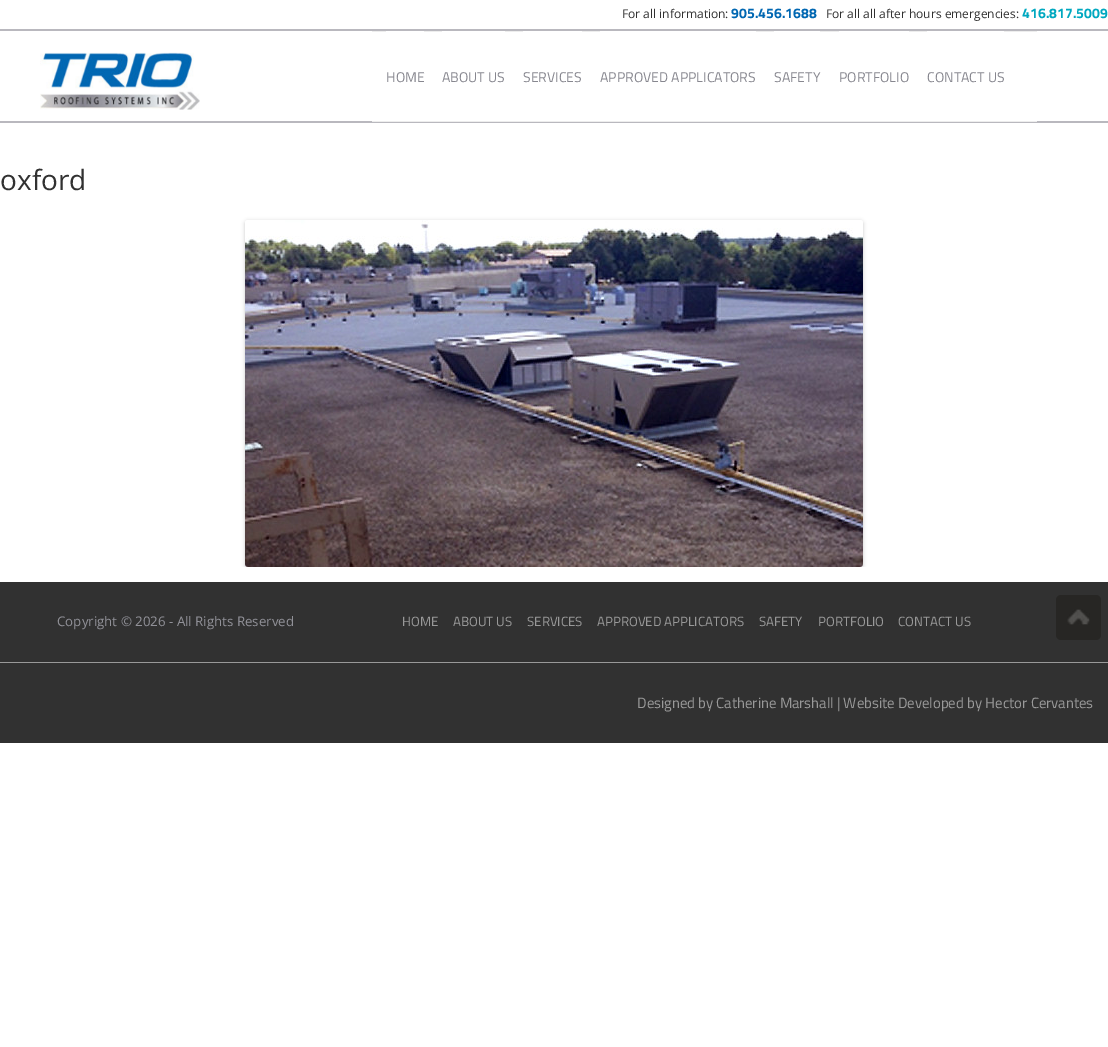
%!PS-Adobe-3.0
%%BoundingBox: 0 0 1108 1047
%%LanguageLevel: 3
%%Pages: 1
%%EndComments
%%BeginProlog
/setink { 3 { 255 div 3 1 roll } repeat setrgbcolor } def
/usefont { [ exch dup neg 0 0 3 -1 roll 0 0 ] selectfont } def
/drawtext { setink usefont moveto show } def
/fillbox { setink rectfill } def
/setalpha { dup .setfillconstantalpha .setstrokeconstantalpha } def
/rrect { 5 dict begin { /r /h /w /y /x } { exch def } forall
  x r add y moveto x w add y 2 copy h add r arct x w add y h add x 1 index r arct
  x y h add x y r arct x y 2 copy exch w add exch r arct closepath end } def
/softshadow { 12 dict begin { /a /b /q /h /w /y /x } { exch def } forall gsave /was 0 def
  9 -2 -9 { dup b mul 4 div /e exch def 1 sub .425 mul 2.718 exch exp 1 add a .99 .min exch div /now exch def
    1 1 now sub 1 was sub div sub setalpha /was now def
    w h .min e 2 mul add 0 gt { x e sub y e sub w e 2 mul add h e 2 mul add
      q e add b .6 mul add w h .min 2 div e add .min 0 .max rrect fill } if } for grestore end } def
/drawimage { 5 dict begin { /h /w /y /x /name } { exch def } forall
  gsave x y translate w h scale
  w h 8 [w 0 0 h 0 0] name (r) file false 3 colorimage grestore end } def
%%EndProlog
%%BeginSetup
<< /PageSize [1108 1047] /PageUsesTransparency true >> setpagedevice
%%EndSetup
%%Page: 1 1
0 .pushpdf14devicefilter
0 1047 translate 1 -1 scale
4 setmiterlimit
0 0 1108 1047 255 255 255 fillbox
(For all information:) 622 18 /OpenSans-Regular 12 49 49 49 drawtext
(905.456.1688) 731 18 /TitilliumWeb-Bold 14 0 103 178 drawtext
(For all all after hours emergencies:) 826 18 /OpenSans-Regular 12 49 49 49 drawtext
(416.817.5009) 1022 18 /TitilliumWeb-Bold 14 0 168 192 drawtext
0 29 1108 2 185 184 190 fillbox
0 121 1108 2 185 184 190 fillbox
(assets/img1.rgb) 40 52 160 58 drawimage
372 31 665 1 237 237 237 fillbox
372 121 665 1 237 237 237 fillbox
386 31 38 1 255 255 255 fillbox
(HOME) 386 82 /TitilliumWeb-Regular 14.1 135 135 143 drawtext
442 31 63 1 255 255 255 fillbox
(ABOUT US) 442 82 /TitilliumWeb-Regular 14.1 135 135 143 drawtext
523 31 59 1 255 255 255 fillbox
(SERVICES) 523 82 /TitilliumWeb-Regular 14.1 135 135 143 drawtext
600 31 156 1 255 255 255 fillbox
(APPROVED APPLICATORS) 600 82 /TitilliumWeb-Regular 14.1 135 135 143 drawtext
774 31 46 1 255 255 255 fillbox
(SAFETY) 774 82 /TitilliumWeb-Regular 14.1 135 135 143 drawtext
839 31 70 1 255 255 255 fillbox
(PORTFOLIO) 839 82 /TitilliumWeb-Regular 14.1 135 135 143 drawtext
927 31 77 1 255 255 255 fillbox
(CONTACT US) 927 82 /TitilliumWeb-Regular 14.1 135 135 143 drawtext
(oxford) 0 190 /OpenSans-Regular 28 49 49 49 drawtext
gsave
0 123 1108 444 rectclip
0 0 0 setink
245 221 618 347 3 2 0.2 softshadow
grestore
(assets/img2.rgb) 245 220 618 347 drawimage
0 582 1108 161 49 49 49 fillbox
(Copyright © 2026 - All Rights Reserved) 57 626 /OpenSans-Regular 13.3 145 145 152 drawtext
(HOME) 402 626 /TitilliumWeb-Regular 13.3 153 153 153 drawtext
(ABOUT US) 453 626 /TitilliumWeb-Regular 13.3 153 153 153 drawtext
(SERVICES) 527 626 /TitilliumWeb-Regular 13.3 153 153 153 drawtext
(APPROVED APPLICATORS) 597 626 /TitilliumWeb-Regular 13.3 153 153 153 drawtext
(SAFETY) 759 626 /TitilliumWeb-Regular 13.3 153 153 153 drawtext
(PORTFOLIO) 818 626 /TitilliumWeb-Regular 13.3 153 153 153 drawtext
(CONTACT US) 898 626 /TitilliumWeb-Regular 13.3 153 153 153 drawtext
39 38 36 setink
1056 595 45 45 5 rrect fill
(assets/img3.rgb) 1067 609 23 16 drawimage
0 662 1108 1 153 153 153 fillbox
(Designed by Catherine Marshall | Website Developed by Hector Cervantes) 637 708 /TitilliumWeb-Regular 14.8 153 153 153 drawtext
.poppdf14devicefilter showpage
%%EOF
